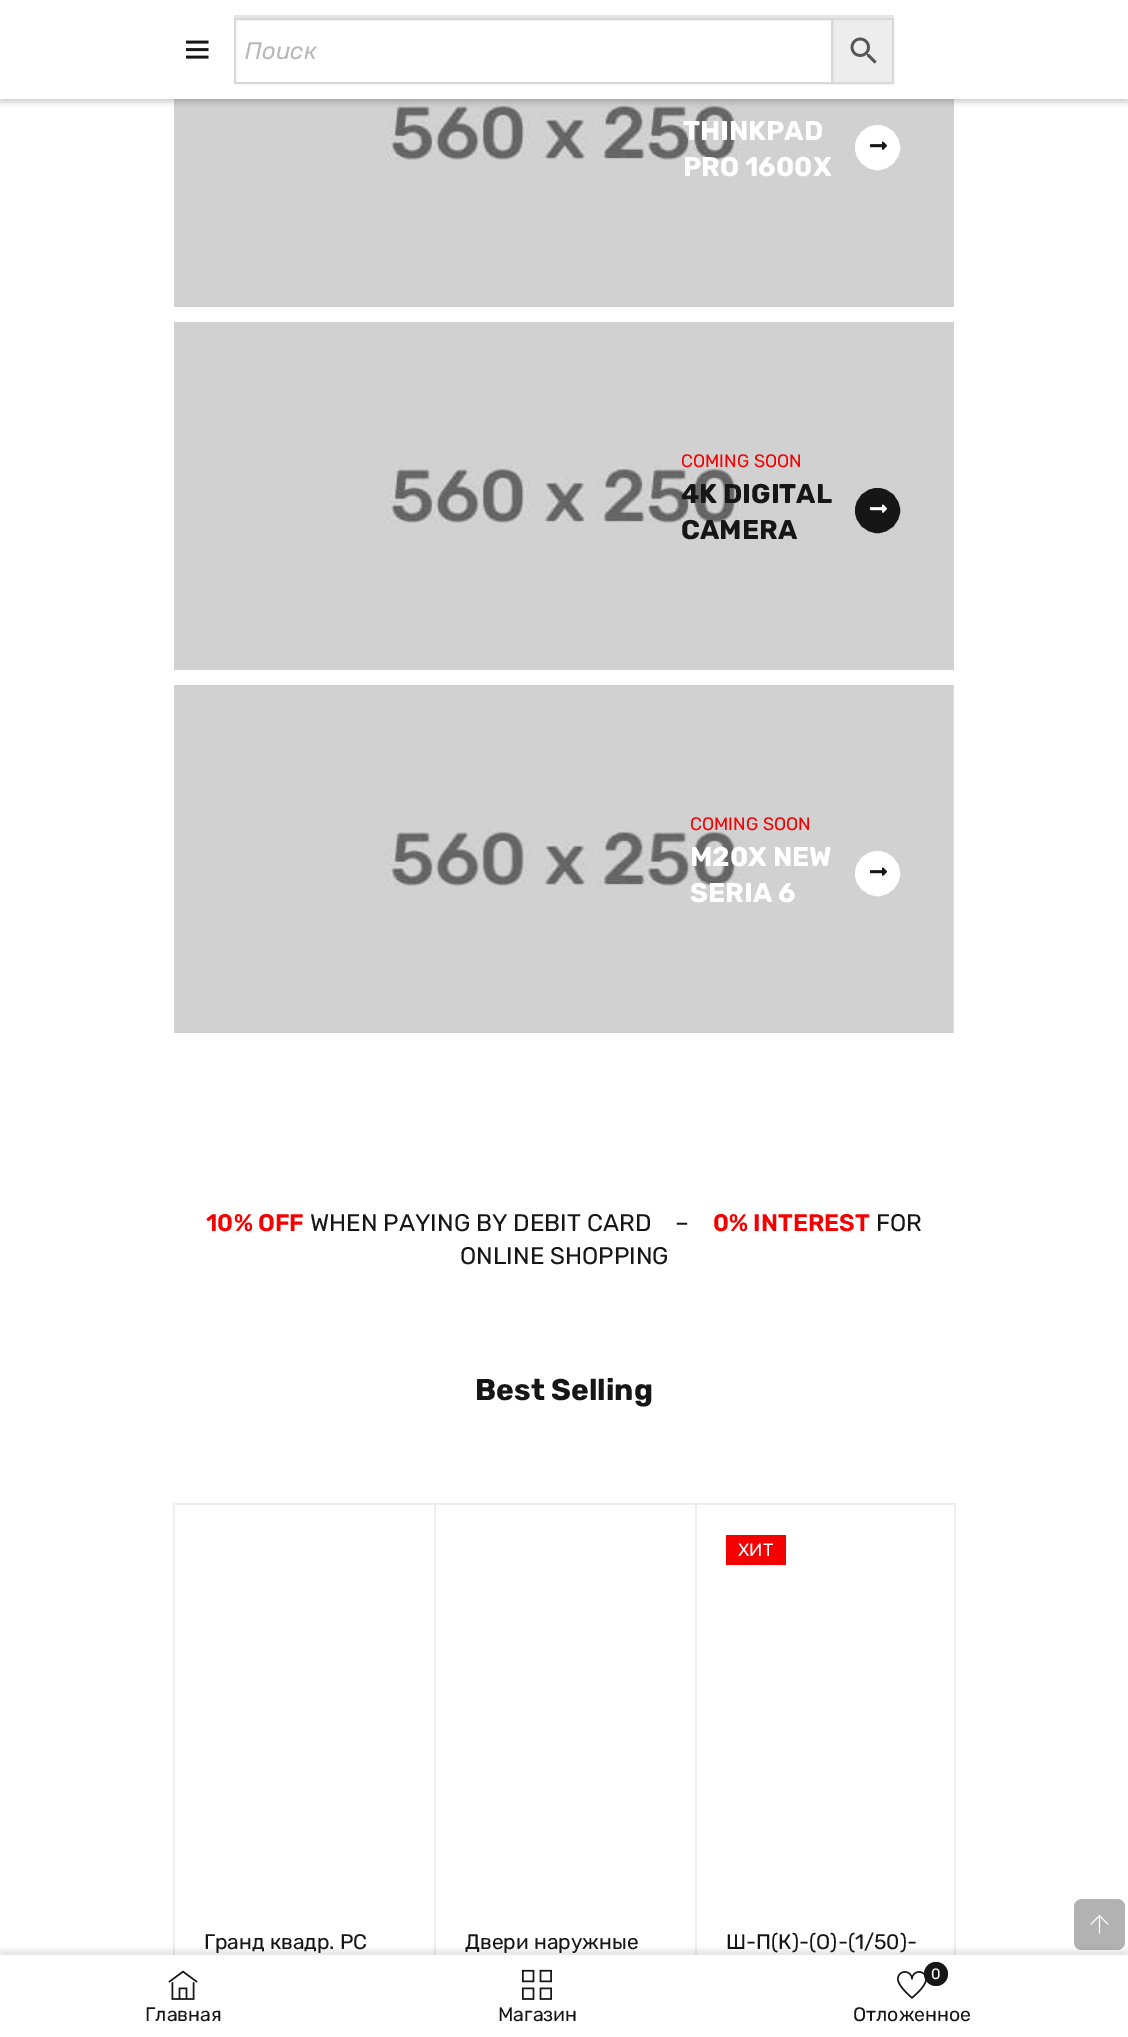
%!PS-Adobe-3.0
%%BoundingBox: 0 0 1128 2037
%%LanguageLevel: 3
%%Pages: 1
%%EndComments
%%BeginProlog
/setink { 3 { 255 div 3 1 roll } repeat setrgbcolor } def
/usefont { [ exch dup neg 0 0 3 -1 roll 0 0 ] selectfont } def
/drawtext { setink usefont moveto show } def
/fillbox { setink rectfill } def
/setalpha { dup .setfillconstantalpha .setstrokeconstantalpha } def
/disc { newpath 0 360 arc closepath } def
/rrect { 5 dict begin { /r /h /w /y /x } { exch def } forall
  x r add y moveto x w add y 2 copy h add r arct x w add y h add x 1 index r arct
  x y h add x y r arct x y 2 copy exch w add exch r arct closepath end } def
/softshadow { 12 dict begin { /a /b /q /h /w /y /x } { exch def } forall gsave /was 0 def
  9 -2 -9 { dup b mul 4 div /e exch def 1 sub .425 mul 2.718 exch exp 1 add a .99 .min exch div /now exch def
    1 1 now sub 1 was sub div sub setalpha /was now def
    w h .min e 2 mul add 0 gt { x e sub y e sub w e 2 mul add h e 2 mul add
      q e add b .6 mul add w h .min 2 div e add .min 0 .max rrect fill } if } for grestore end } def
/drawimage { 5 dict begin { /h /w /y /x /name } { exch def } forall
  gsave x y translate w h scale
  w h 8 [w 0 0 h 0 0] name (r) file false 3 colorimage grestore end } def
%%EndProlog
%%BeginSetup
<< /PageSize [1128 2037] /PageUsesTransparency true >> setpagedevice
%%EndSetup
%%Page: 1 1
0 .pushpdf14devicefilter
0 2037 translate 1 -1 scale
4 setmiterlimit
0 0 1128 2037 255 255 255 fillbox
(assets/img3.rgb) 174 99 780 208 drawimage
0 0 0 setink
0 3 1128 99 0 3 0.2 softshadow
0 0 1128 99 255 255 255 fillbox
(assets/img1.rgb) 186 40 23 19 drawimage
234 15 660 3 229 229 229 fillbox
237 237 237 setink
832 19 moveto 893 19 lineto 893 83 lineto 832 83 lineto closepath gsave fill grestore
216 216 216 setink
2 setlinewidth
stroke
235 19 597 64 rectstroke
(Поиск) 245 59 /Rubik-Italic 24 184 184 184 drawtext
(assets/img2.rgb) 850 37 27 27 drawimage
(THINKPAD) 683 140 /Rubik-Bold 27 255 255 255 drawtext
(PRO 1600X) 683 176 /Rubik-Bold 27 255 255 255 drawtext
877.5 147.5 21.5 disc gsave fill grestore
stroke
(assets/img4.rgb) 870 141 17 9 drawimage
(assets/img5.rgb) 174 322 780 348 drawimage
(COMING SOON) 681 467 /Rubik-Regular 18 245 0 0 drawtext
(4K DIGITAL) 681 503 /Rubik-Bold 27 22 22 22 drawtext
(CAMERA) 681 539 /Rubik-Bold 27 22 22 22 drawtext
877.5 510.5 21.5 disc gsave fill grestore
stroke
(assets/img6.rgb) 870 504 17 9 drawimage
(assets/img7.rgb) 174 685 780 348 drawimage
(COMING SOON) 690 830 /Rubik-Regular 18 245 0 0 drawtext
(M20X NEW) 690 866 /Rubik-Bold 27 255 255 255 drawtext
(SERIA 6) 690 902 /Rubik-Bold 27 255 255 255 drawtext
877.5 873.5 21.5 disc gsave fill grestore
stroke
(assets/img4.rgb) 870 867 17 9 drawimage
(10% OFF) 206 1231 /Rubik-SemiBold 24 245 0 0 drawtext
(WHEN PAYING BY DEBIT CARD) 310 1231 /Rubik-Regular 24 22 22 22 drawtext
(–) 675 1231 /Rubik-Regular 24 22 22 22 drawtext
(0% INTEREST) 713 1231 /Rubik-SemiBold 24 245 0 0 drawtext
(FOR) 876 1231 /Rubik-Regular 24 22 22 22 drawtext
(ONLINE SHOPPING) 460 1264 /Rubik-Regular 24 22 22 22 drawtext
(Best Selling) 475 1400 /Rubik-Bold 30 22 22 22 drawtext
954 1503 2 452 239 239 239 fillbox
173 1503 2 452 239 239 239 fillbox
174 1503 780 2 239 239 239 fillbox
434 1503 2 452 239 239 239 fillbox
(Гранд квадр. PC) 204 1949 /Rubik-Regular 21 22 22 22 drawtext
695 1503 2 452 239 239 239 fillbox
(Двери наружные) 465 1949 /Rubik-Regular 21 22 22 22 drawtext
726 1535 60 30 245 0 0 fillbox
(ХИТ) 738 1556 /Rubik-Regular 18 255 255 255 drawtext
(Ш-П\(К\)-\(О\)-\(1/50\)-) 726 1949 /Rubik-Regular 21 22 22 22 drawtext
0 0 0 setink
0 1950 1128 83 0 3 0.1 softshadow
0.3 setalpha
1074 1899 51 51 8 rrect fill
1 setalpha
(assets/img8.rgb) 1090 1915 19 19 drawimage
0 1955 1128 82 255 255 255 fillbox
(assets/img9.rgb) 168 1970 30 30 drawimage
(Главная) 145 2021 /Rubik-Regular 19.5 22 22 22 drawtext
(assets/img10.rgb) 522 1969 30 31 drawimage
(Магазин) 498 2021 /Rubik-Regular 19.5 22 22 22 drawtext
(assets/img11.rgb) 897 1971 30 28 drawimage
936 1974 12 disc fill
(0) 931 1979 /Rubik-Regular 15 255 255 255 drawtext
(Отложенное) 853 2021 /Rubik-Regular 19.5 22 22 22 drawtext
.poppdf14devicefilter showpage
%%EOF
